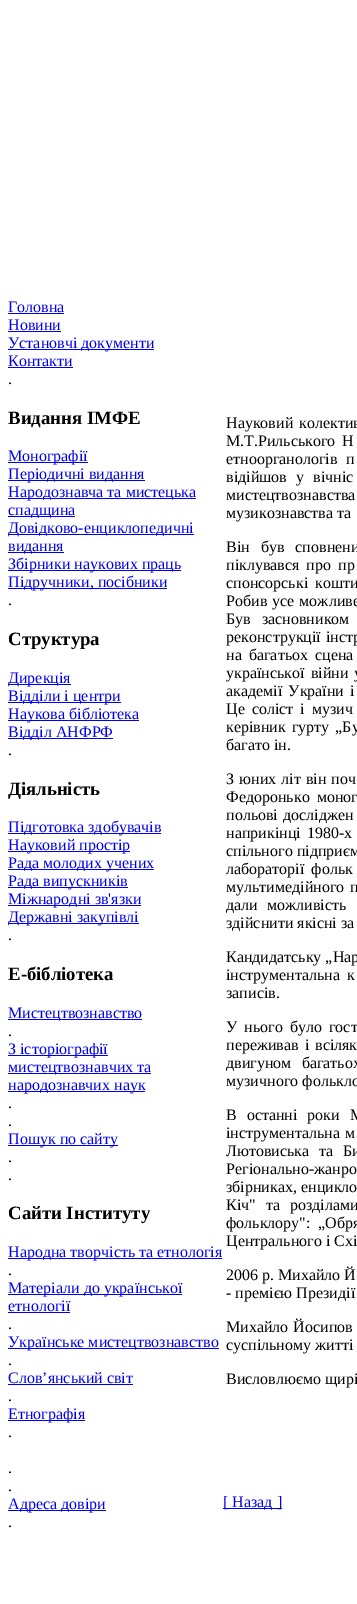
%!PS-Adobe-3.0
%%BoundingBox: 0 0 357 1604
%%LanguageLevel: 3
%%Pages: 1
%%EndComments
%%BeginProlog
/setink { 3 { 255 div 3 1 roll } repeat setrgbcolor } def
/usefont { [ exch dup neg 0 0 3 -1 roll 0 0 ] selectfont } def
/drawtext { setink usefont moveto show } def
/fillbox { setink rectfill } def
%%EndProlog
%%BeginSetup
<< /PageSize [357 1604] >> setpagedevice
%%EndSetup
%%Page: 1 1
0 1604 translate 1 -1 scale
4 setmiterlimit
0 0 357 1604 255 255 255 fillbox
(Головна) 8 312 /LiberationSerif-Regular 16 0 0 238 drawtext
8 313 56 1 0 0 238 fillbox
(Новини) 8 330 /LiberationSerif-Regular 16 0 0 238 drawtext
8 331 53 1 0 0 238 fillbox
8 349 146 1 0 0 238 fillbox
(Установчі документи) 8 348 /LiberationSerif-Regular 16 0 0 238 drawtext
(Контакти) 8 366 /LiberationSerif-Regular 16 0 0 238 drawtext
8 367 65 1 0 0 238 fillbox
(.) 8 384 /LiberationSerif-Regular 16 0 0 0 drawtext
(Видання ІМФЕ) 8 424 /LiberationSerif-Bold 18.75 0 0 0 drawtext
8 462 80 1 0 0 238 fillbox
(Монографії) 8 461 /LiberationSerif-Regular 16 0 0 238 drawtext
8 480 137 1 0 0 238 fillbox
(Періодичні видання) 8 479 /LiberationSerif-Regular 16 0 0 238 drawtext
8 498 188 1 0 0 238 fillbox
(Народознавча та мистецька) 8 497 /LiberationSerif-Regular 16 0 0 238 drawtext
8 516 67 1 0 0 238 fillbox
(спадщина) 8 515 /LiberationSerif-Regular 16 0 0 238 drawtext
8 534 186 1 0 0 238 fillbox
(Довідково-енциклопедичні) 8 533 /LiberationSerif-Regular 16 0 0 238 drawtext
8 552 56 1 0 0 238 fillbox
(видання) 8 551 /LiberationSerif-Regular 16 0 0 238 drawtext
8 570 173 1 0 0 238 fillbox
(Збірники наукових праць) 8 569 /LiberationSerif-Regular 16 0 0 238 drawtext
8 588 159 1 0 0 238 fillbox
(Підручники, посібники) 8 587 /LiberationSerif-Regular 16 0 0 238 drawtext
(.) 8 605 /LiberationSerif-Regular 16 0 0 0 drawtext
(Структура) 8 645 /LiberationSerif-Bold 18.75 0 0 0 drawtext
8 684 63 1 0 0 238 fillbox
(Дирекція) 8 683 /LiberationSerif-Regular 16 0 0 238 drawtext
8 702 113 1 0 0 238 fillbox
(Відділи і центри) 8 701 /LiberationSerif-Regular 16 0 0 238 drawtext
8 720 131 1 0 0 238 fillbox
(Наукова бібліотека) 8 719 /LiberationSerif-Regular 16 0 0 238 drawtext
8 738 105 1 0 0 238 fillbox
(Відділ АНФРФ) 8 737 /LiberationSerif-Regular 16 0 0 238 drawtext
(.) 8 755 /LiberationSerif-Regular 16 0 0 0 drawtext
(Діяльність) 8 795 /LiberationSerif-Bold 18.75 0 0 0 drawtext
8 833 153 1 0 0 238 fillbox
(Підготовка здобувачів) 8 832 /LiberationSerif-Regular 16 0 0 238 drawtext
8 851 122 1 0 0 238 fillbox
(Науковий простір) 8 850 /LiberationSerif-Regular 16 0 0 238 drawtext
8 869 146 1 0 0 238 fillbox
(Рада молодих учених) 8 868 /LiberationSerif-Regular 16 0 0 238 drawtext
8 887 120 1 0 0 238 fillbox
(Рада випускників) 8 886 /LiberationSerif-Regular 16 0 0 238 drawtext
8 905 133 1 0 0 238 fillbox
(Міжнародні зв'язки) 8 904 /LiberationSerif-Regular 16 0 0 238 drawtext
8 923 131 1 0 0 238 fillbox
(Державні закупівлі) 8 922 /LiberationSerif-Regular 16 0 0 238 drawtext
(.) 8 940 /LiberationSerif-Regular 16 0 0 0 drawtext
(Е-бібліотека) 8 980 /LiberationSerif-Bold 18.75 0 0 0 drawtext
8 1019 134 1 0 0 238 fillbox
(Мистецтвознавство) 8 1018 /LiberationSerif-Regular 16 0 0 238 drawtext
(.) 8 1036 /LiberationSerif-Regular 16 0 0 0 drawtext
8 1055 100 1 0 0 238 fillbox
(З історіографії) 8 1054 /LiberationSerif-Regular 16 0 0 238 drawtext
8 1073 143 1 0 0 238 fillbox
(мистецтвознавчих та) 8 1072 /LiberationSerif-Regular 16 0 0 238 drawtext
8 1091 137 1 0 0 238 fillbox
(народознавчих наук) 8 1090 /LiberationSerif-Regular 16 0 0 238 drawtext
(.) 8 1108 /LiberationSerif-Regular 16 0 0 0 drawtext
(.) 8 1126 /LiberationSerif-Regular 16 0 0 0 drawtext
8 1145 110 1 0 0 238 fillbox
(Пошук по сайту) 8 1144 /LiberationSerif-Regular 16 0 0 238 drawtext
(.) 8 1162 /LiberationSerif-Regular 16 0 0 0 drawtext
(.) 8 1180 /LiberationSerif-Regular 16 0 0 0 drawtext
(Сайти Інституту) 8 1219 /LiberationSerif-Bold 18.75 0 0 0 drawtext
8 1258 214 1 0 0 238 fillbox
(Народна творчість та етнологія) 8 1257 /LiberationSerif-Regular 16 0 0 238 drawtext
(.) 8 1275 /LiberationSerif-Regular 16 0 0 0 drawtext
8 1294 174 1 0 0 238 fillbox
(Матеріали до української) 8 1293 /LiberationSerif-Regular 16 0 0 238 drawtext
(етнології) 8 1311 /LiberationSerif-Regular 16 0 0 238 drawtext
8 1312 62 1 0 0 238 fillbox
(.) 8 1329 /LiberationSerif-Regular 16 0 0 0 drawtext
8 1348 211 1 0 0 238 fillbox
(Українське мистецтвознавство) 8 1347 /LiberationSerif-Regular 16 0 0 238 drawtext
(.) 8 1365 /LiberationSerif-Regular 16 0 0 0 drawtext
(Слов’янський світ) 8 1383 /LiberationSerif-Regular 16 0 0 238 drawtext
8 1384 125 1 0 0 238 fillbox
(.) 8 1401 /LiberationSerif-Regular 16 0 0 0 drawtext
8 1420 77 1 0 0 238 fillbox
(Етнографія) 8 1419 /LiberationSerif-Regular 16 0 0 238 drawtext
(.) 8 1437 /LiberationSerif-Regular 16 0 0 0 drawtext
(.) 8 1473 /LiberationSerif-Regular 16 0 0 0 drawtext
(.) 8 1491 /LiberationSerif-Regular 16 0 0 0 drawtext
8 1510 98 1 0 0 238 fillbox
(Адреса довіри) 8 1509 /LiberationSerif-Regular 16 0 0 238 drawtext
(.) 8 1527 /LiberationSerif-Regular 16 0 0 0 drawtext
226 428 moveto 2 0 32 (Науковий колектив) widthshow
226 446 moveto 3 0 32 (М.Т.Рильського Н) widthshow
226 464 moveto 5 0 32 (етноорганологів п) widthshow
226 482 moveto 5 0 32 (відійшов у вічніс) widthshow
226 500 moveto 17 0 32 (мистецтвознавства) widthshow
(музикознавства та) 226 518 /LiberationSerif-Regular 16 0 0 0 drawtext
226 552 moveto 7 0 32 (Він був сповнени) widthshow
226 570 moveto 3 0 32 (піклувався про пр) widthshow
226 588 moveto 3 0 32 (спонсорські кошти) widthshow
226 606 moveto 1 0 32 (Робив усе можливе) widthshow
226 624 moveto 7 0 32 (Був засновником) widthshow
226 642 moveto 1 0 32 (реконструкції інстр) widthshow
226 660 moveto 3 0 32 (на багатьох сцена) widthshow
226 678 moveto 2 0 32 (української війни у) widthshow
226 696 moveto 2 0 32 (академії України і) widthshow
226 714 moveto 3 0 32 (Це соліст і музич) widthshow
226 732 moveto 2 0 32 (керівник гурту „Бу) widthshow
(багато ін.) 226 750 /LiberationSerif-Regular 16 0 0 0 drawtext
226 784 moveto 1 0 32 (З юних літ він поч) widthshow
226 802 moveto 3 0 32 (Федоронько моног) widthshow
226 820 moveto 1 0 32 (польові досліджен) widthshow
226 838 moveto 2 0 32 (наприкінці 1980-х) widthshow
(спільного підприєм) 226 856 /LiberationSerif-Regular 16 0 0 0 drawtext
226 874 moveto 3 0 32 (лабораторії фольк) widthshow
226 892 moveto 2 0 32 (мультимедійного п) widthshow
226 910 moveto 5 0 32 (дали можливість) widthshow
(здійснити якісні за) 226 928 /LiberationSerif-Regular 16 0 0 0 drawtext
(Кандидатську „Нар) 226 962 /LiberationSerif-Regular 16 0 0 0 drawtext
226 980 moveto 3 0 32 (інструментальна к) widthshow
(записів.) 226 998 /LiberationSerif-Regular 16 0 0 0 drawtext
226 1032 moveto 3 0 32 (У нього було гост) widthshow
226 1050 moveto 2 0 32 (переживав і всіляк) widthshow
226 1068 moveto 6 0 32 (двигуном багатьох) widthshow
(музичного фолькло) 226 1086 /LiberationSerif-Regular 16 0 0 0 drawtext
226 1120 moveto 6 0 32 (В останні роки М) widthshow
226 1138 moveto 1 0 32 (інструментальна м) widthshow
226 1156 moveto 6 0 32 (Лютовиська та Би) widthshow
226 1174 moveto 5 0 32 (Регіонально-жанро) widthshow
(збірниках, енцикло) 226 1192 /LiberationSerif-Regular 16 0 0 0 drawtext
226 1210 moveto 6 0 32 (Кіч" та розділами) widthshow
226 1228 moveto 4 0 32 (фольклору": „Обря) widthshow
(Центрального і Схі) 226 1246 /LiberationSerif-Regular 16 0 0 0 drawtext
(2006 р. Михайло Й) 226 1280 /LiberationSerif-Regular 16 0 0 0 drawtext
(- премією Президії) 226 1298 /LiberationSerif-Regular 16 0 0 0 drawtext
226 1332 moveto 1 0 32 (Михайло Йосипов) widthshow
(суспільному житті) 226 1350 /LiberationSerif-Regular 16 0 0 0 drawtext
(Висловлюємо щирі) 226 1384 /LiberationSerif-Regular 16 0 0 0 drawtext
223 1508 59 1 0 0 238 fillbox
([ Назад ]) 223 1507 /LiberationSerif-Regular 16 0 0 238 drawtext
showpage
%%EOF
